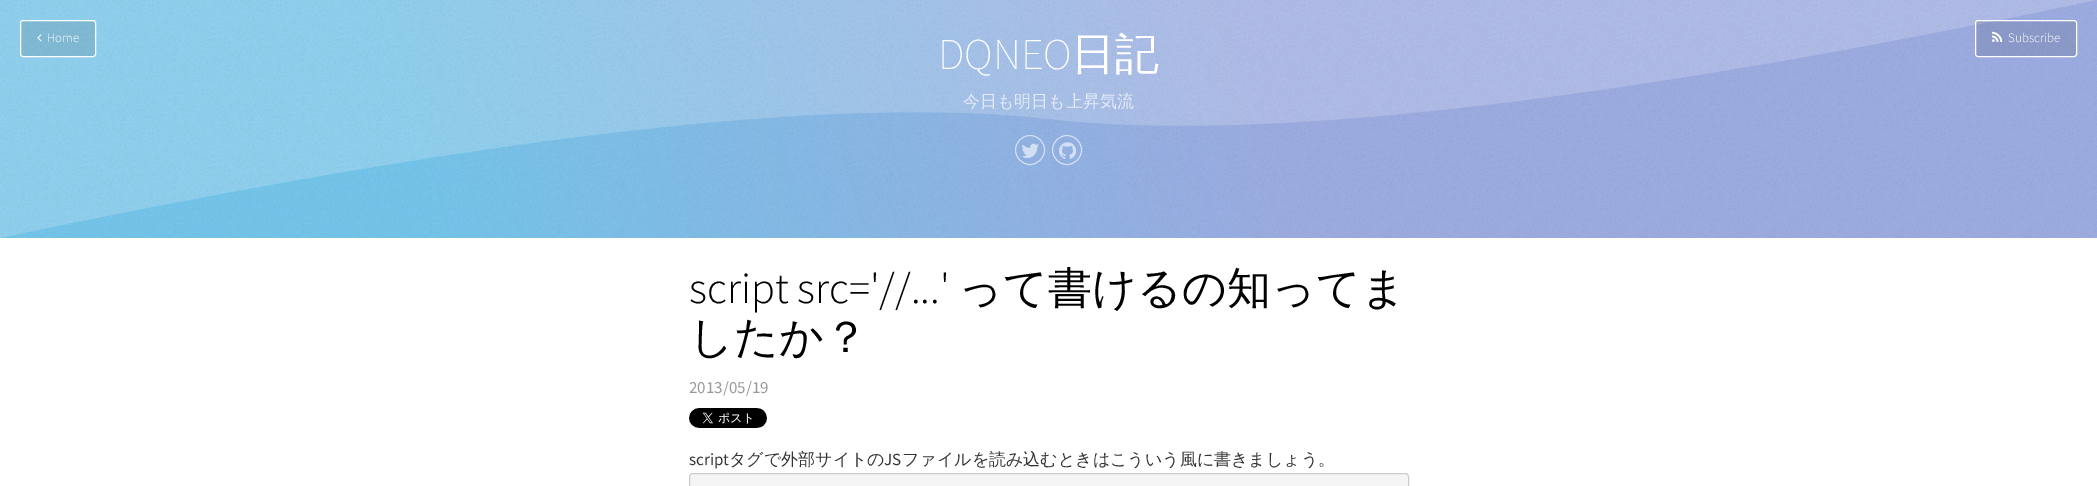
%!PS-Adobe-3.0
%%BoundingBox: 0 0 2097 486
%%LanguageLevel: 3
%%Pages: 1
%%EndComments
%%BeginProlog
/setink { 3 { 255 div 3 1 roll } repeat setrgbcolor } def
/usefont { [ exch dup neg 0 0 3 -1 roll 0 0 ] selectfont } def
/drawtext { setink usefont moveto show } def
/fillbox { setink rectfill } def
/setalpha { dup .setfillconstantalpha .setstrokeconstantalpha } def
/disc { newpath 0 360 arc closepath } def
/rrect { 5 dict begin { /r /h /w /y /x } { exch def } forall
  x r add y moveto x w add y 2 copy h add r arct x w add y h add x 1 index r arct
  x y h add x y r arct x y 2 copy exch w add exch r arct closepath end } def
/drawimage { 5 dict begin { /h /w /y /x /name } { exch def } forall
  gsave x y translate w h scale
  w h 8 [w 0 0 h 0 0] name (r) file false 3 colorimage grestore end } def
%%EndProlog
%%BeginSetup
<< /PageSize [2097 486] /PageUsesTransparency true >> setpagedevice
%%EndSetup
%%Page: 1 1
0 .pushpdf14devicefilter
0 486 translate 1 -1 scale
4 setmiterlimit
0 0 2097 486 255 255 255 fillbox
gsave 0 0 moveto 2097 0 lineto 2097 238 lineto 0 238 lineto closepath clip newpath
<< /ShadingType 2 /ColorSpace /DeviceRGB /Coords [40 389 2057 -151] /Extend [true true] /Function << /FunctionType 3 /Domain [0 1] /Functions [<< /FunctionType 2 /Domain [0 1] /C0 [0.463 0.78 0.929] /C1 [0.463 0.78 0.929] /N 1 >> << /FunctionType 2 /Domain [0 1] /C0 [0.463 0.78 0.929] /C1 [0.62 0.682 0.894] /N 1 >> << /FunctionType 2 /Domain [0 1] /C0 [0.62 0.682 0.894] /C1 [0.62 0.682 0.894] /N 1 >>] /Bounds [0.2 0.6] /Encode [0 1 0 1 0 1] >> >> shfill grestore
0.2 setalpha
2097 0 moveto 1608 103 1258 143 1048 119 curveto 839 95 489 135 0 238 curveto 0 0 lineto fill
1 setalpha
(assets/img1.rgb) 0 0 2097 238 drawimage
0.1 setalpha
0 0 0 setink
20.5 20.5 75 36 2.5 rrect fill
1 setalpha
255 255 255 setink
20.5 20.5 75 36 2.5 rrect stroke
(assets/img2.rgb) 37 34 5 8 drawimage
(Home) 47 42 /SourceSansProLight-Light 13 255 255 255 drawtext
(DQNEO) 938 69 /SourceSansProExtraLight-ExtraLight 44 255 255 255 drawtext
(日記) 1071 69 /WenQuanYiZenHei-Medium 44 255 255 255 drawtext
0.1 setalpha
0 0 0 setink
1975.5 20.5 101 36 2.5 rrect fill
1 setalpha
255 255 255 setink
1975.5 20.5 101 36 2.5 rrect stroke
(assets/img3.rgb) 1992 31 11 11 drawimage
(Subscribe) 2008 42 /SourceSansProLight-Light 13 255 255 255 drawtext
(今日も明日も上昇気流) 963 107 /WenQuanYiZenHei-Medium 17 228 235 247 drawtext
0.6 setalpha
255 255 255 setink
1030 150 14.5 disc stroke
1 setalpha
(assets/img4.rgb) 1021 143 18 15 drawimage
0.6 setalpha
1067 150 14.5 disc stroke
1 setalpha
(assets/img5.rgb) 1059 142 18 17 drawimage
(script src='//...') 689 303 /SourceSansProLight-Light 44 0 0 0 drawtext
(って書けるの知ってま) 958 303 /WenQuanYiZenHei-Medium 44 0 0 0 drawtext
(したか？) 689 352 /WenQuanYiZenHei-Medium 44 0 0 0 drawtext
(2013/05/19) 689 393 /SourceSansPro-Regular 17 153 153 153 drawtext
(assets/img6.rgb) 689 408 78 20 drawimage
(script) 689 465 /SourceSansPro-Regular 17 51 51 51 drawtext
(タグで外部サイトの) 729 465 /WenQuanYiZenHei-Medium 17 51 51 51 drawtext
(JS) 884 465 /SourceSansPro-Regular 17 51 51 51 drawtext
(ファイルを読み込むときはこういう風に書きましょう。) 902 465 /WenQuanYiZenHei-Medium 17 51 51 51 drawtext
245 245 245 setink
689.5 473.5 719 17 3.5 rrect gsave fill grestore
204 204 204 setink
stroke
.poppdf14devicefilter showpage
%%EOF
